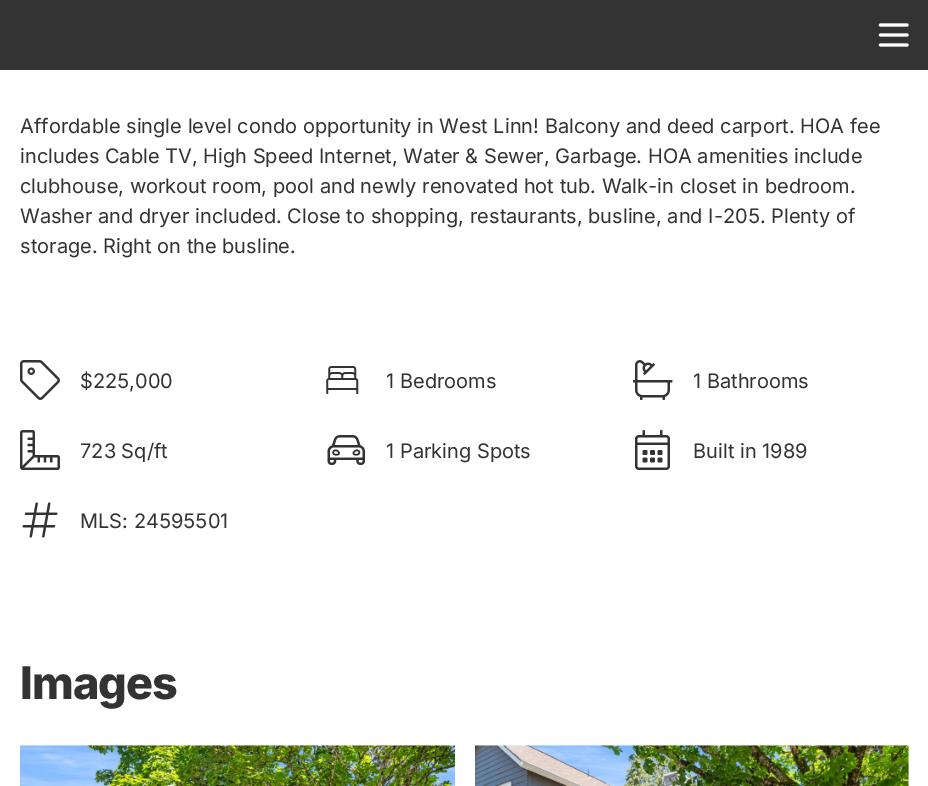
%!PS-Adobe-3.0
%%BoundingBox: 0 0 928 786
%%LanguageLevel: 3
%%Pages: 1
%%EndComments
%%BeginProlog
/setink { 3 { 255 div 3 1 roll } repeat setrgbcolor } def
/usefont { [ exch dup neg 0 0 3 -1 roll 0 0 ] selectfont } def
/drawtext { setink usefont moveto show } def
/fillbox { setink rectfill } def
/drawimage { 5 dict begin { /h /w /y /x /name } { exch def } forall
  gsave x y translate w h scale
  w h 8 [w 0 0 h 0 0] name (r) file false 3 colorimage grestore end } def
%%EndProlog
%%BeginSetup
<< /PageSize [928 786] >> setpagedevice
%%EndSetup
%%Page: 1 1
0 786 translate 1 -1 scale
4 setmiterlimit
0 0 928 786 255 255 255 fillbox
0 0 928 70 51 51 51 fillbox
(assets/img1.rgb) 878 23 31 24 drawimage
(Affordable single level condo opportunity in West Linn! Balcony and deed carport. HOA fee) 20 133 /Inter-Regular 20 51 51 51 drawtext
(includes Cable TV, High Speed Internet, Water & Sewer, Garbage. HOA amenities include) 20 163 /Inter-Regular 20 51 51 51 drawtext
(clubhouse, workout room, pool and newly renovated hot tub. Walk-in closet in bedroom.) 20 193 /Inter-Regular 20 51 51 51 drawtext
(Washer and dryer included. Close to shopping, restaurants, busline, and I-205. Plenty of) 20 223 /Inter-Regular 20 51 51 51 drawtext
(storage. Right on the busline.) 20 253 /Inter-Regular 20 51 51 51 drawtext
(assets/img2.rgb) 20 360 40 40 drawimage
($225,000) 80 388 /Inter-Regular 20 51 51 51 drawtext
(assets/img3.rgb) 326 366 33 28 drawimage
(1 Bedrooms) 386 388 /Inter-Regular 20 51 51 51 drawtext
(assets/img4.rgb) 633 360 40 40 drawimage
(1 Bathrooms) 693 388 /Inter-Regular 20 51 51 51 drawtext
(assets/img5.rgb) 20 430 40 40 drawimage
(723 Sq/ft) 80 458 /Inter-Regular 20 51 51 51 drawtext
(assets/img6.rgb) 327 435 38 30 drawimage
(1 Parking Spots) 386 458 /Inter-Regular 20 51 51 51 drawtext
(assets/img7.rgb) 635 430 35 40 drawimage
(Built in 1989) 693 458 /Inter-Regular 20 51 51 51 drawtext
(assets/img8.rgb) 22 502 36 36 drawimage
(MLS: 24595501) 80 528 /Inter-Regular 20 51 51 51 drawtext
/Inter-ExtraBold 45 usefont
20 699 moveto -1 0 (Images) ashow
(assets/img9.rgb) 20 745 435 41 drawimage
(assets/img10.rgb) 475 745 434 41 drawimage
showpage
%%EOF
